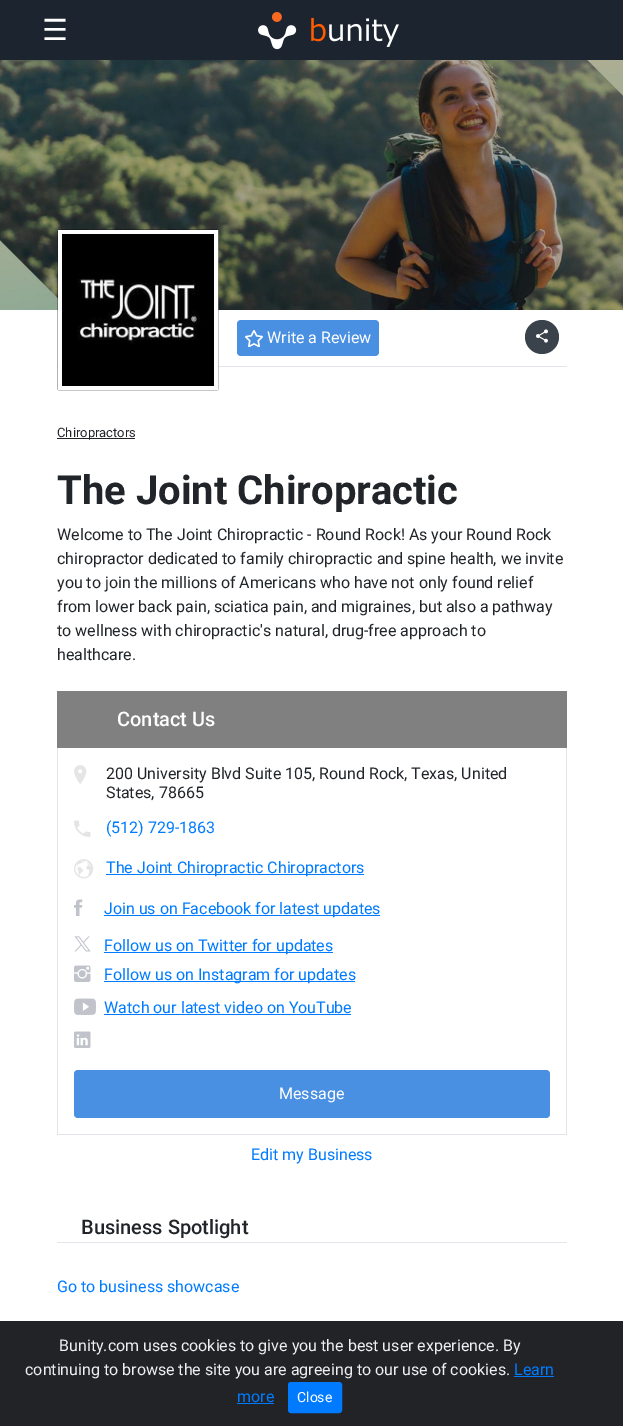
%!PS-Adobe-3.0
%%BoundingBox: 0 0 623 1426
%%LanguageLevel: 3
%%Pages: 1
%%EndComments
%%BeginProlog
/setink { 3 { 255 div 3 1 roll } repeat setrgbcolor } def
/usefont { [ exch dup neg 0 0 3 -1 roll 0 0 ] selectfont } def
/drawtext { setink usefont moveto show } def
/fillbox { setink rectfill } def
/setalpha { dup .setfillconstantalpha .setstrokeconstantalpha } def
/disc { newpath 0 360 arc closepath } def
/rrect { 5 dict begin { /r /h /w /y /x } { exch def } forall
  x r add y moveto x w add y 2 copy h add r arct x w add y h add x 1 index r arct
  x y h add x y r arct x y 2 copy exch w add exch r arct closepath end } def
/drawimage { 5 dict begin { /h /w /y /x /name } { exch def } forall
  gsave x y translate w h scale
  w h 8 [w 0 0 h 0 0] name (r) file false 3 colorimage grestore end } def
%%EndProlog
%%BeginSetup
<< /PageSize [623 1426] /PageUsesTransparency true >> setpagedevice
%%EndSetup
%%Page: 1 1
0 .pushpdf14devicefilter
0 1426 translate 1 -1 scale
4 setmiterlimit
0 0 623 1426 255 255 255 fillbox
0 0 623 60 27 36 47 fillbox
(☰) 42 40 /DejaVuSans-Regular 29 255 255 255 drawtext
(assets/img1.rgb) 258 12 141 38 drawimage
(assets/img2.rgb) 0 60 623 250 drawimage
57 366 510 1 228 229 234 fillbox
0.3 setalpha
0 0 0 setink
57 229 162 162 3 rrect fill
1 setalpha
255 255 255 setink
4 setlinewidth
60 232 156 156 rectstroke
(assets/img3.rgb) 62 234 152 152 drawimage
74 144 226 setink
237 320 142 36 4 rrect fill
(assets/img4.rgb) 245 330 18 17 drawimage
(Write a Review) 267 343 /Roboto-Regular 16 255 255 255 drawtext
58 66 76 setink
542 337 17 disc fill
(assets/img5.rgb) 536 329 12 14 drawimage
57 438 78 1 33 37 41 fillbox
(Chiropractors) 57 437 /Roboto-Regular 13 33 37 41 drawtext
(The Joint Chiropractic) 57 504 /Roboto-Bold 40 33 37 41 drawtext
(Welcome to The Joint Chiropractic - Round Rock! As your Round Rock) 57 540 /Roboto-Regular 16 33 37 41 drawtext
(chiropractor dedicated to family chiropractic and spine health, we invite) 57 564 /Roboto-Regular 16 33 37 41 drawtext
(you to join the millions of Americans who have not only found relief) 57 588 /Roboto-Regular 16 33 37 41 drawtext
(from lower back pain, sciatica pain, and migraines, but also a pathway) 57 612 /Roboto-Regular 16 33 37 41 drawtext
(to wellness with chiropractic's natural, drug-free approach to) 57 636 /Roboto-Regular 16 33 37 41 drawtext
(healthcare.) 57 660 /Roboto-Regular 16 33 37 41 drawtext
57 691 510 57 128 128 128 fillbox
(Contact Us) 117 726 /Roboto-Medium 20 255 255 255 drawtext
566 748 1 387 228 229 234 fillbox
57 1134 510 1 228 229 234 fillbox
57 748 1 387 228 229 234 fillbox
(assets/img6.rgb) 74 765 13 19 drawimage
(200 University Blvd Suite 105, Round Rock, Texas, United) 106 779 /Roboto-Regular 16 33 37 41 drawtext
(States, 78665) 106 798 /Roboto-Regular 16 33 37 41 drawtext
(assets/img7.rgb) 74 820 17 17 drawimage
(\(512\) 729-1863) 106 833 /Roboto-Regular 16 0 123 255 drawtext
(assets/img8.rgb) 74 859 20 20 drawimage
106 874 258 1 0 123 255 fillbox
(The Joint Chiropractic Chiropractors) 106 873 /Roboto-Regular 16 0 123 255 drawtext
(assets/img9.rgb) 74 899 9 17 drawimage
104 915 276 1 0 123 255 fillbox
(Join us on Facebook for latest updates) 104 914 /Roboto-Regular 16 0 123 255 drawtext
(assets/img10.rgb) 74 936 17 16 drawimage
104 952 229 1 0 123 255 fillbox
(Follow us on Twitter for updates) 104 951 /Roboto-Regular 16 0 123 255 drawtext
(assets/img11.rgb) 74 965 17 17 drawimage
104 981 251 1 0 123 255 fillbox
(Follow us on Instagram for updates) 104 980 /Roboto-Regular 16 0 123 255 drawtext
(assets/img12.rgb) 74 998 22 17 drawimage
(Watch our latest video on YouTube) 104 1013 /Roboto-Regular 16 0 123 255 drawtext
104 1014 247 1 0 123 255 fillbox
(assets/img13.rgb) 74 1031 17 17 drawimage
74 144 226 setink
74 1070 476 48 4 rrect fill
(Message) 279 1099 /Roboto-Regular 16 255 255 255 drawtext
(Edit my Business) 251 1160 /Roboto-Regular 16 0 123 255 drawtext
57 1242 510 1 228 229 234 fillbox
(Business Spotlight) 81 1234 /Roboto-Medium 20 33 37 41 drawtext
(Go to business showcase) 57 1292 /Roboto-Regular 16 0 123 255 drawtext
0 1321 623 105 33 35 39 fillbox
(Bunity.com uses cookies to give you the best user experience. By) 59 1351 /Roboto-Regular 16 236 240 241 drawtext
(continuing to browse the site you are agreeing to our use of cookies.) 25 1375 /Roboto-Regular 16 236 240 241 drawtext
(Learn) 514 1375 /Roboto-Regular 16 0 123 255 drawtext
514 1376 40 1 0 123 255 fillbox
(more) 237 1402 /Roboto-Regular 16 0 123 255 drawtext
237 1403 37 1 0 123 255 fillbox
288.5 1382.5 53 30 2.5 rrect gsave fill grestore
1 setlinewidth
stroke
(Close) 297 1402 /Roboto-Regular 14 255 255 255 drawtext
.poppdf14devicefilter showpage
%%EOF
